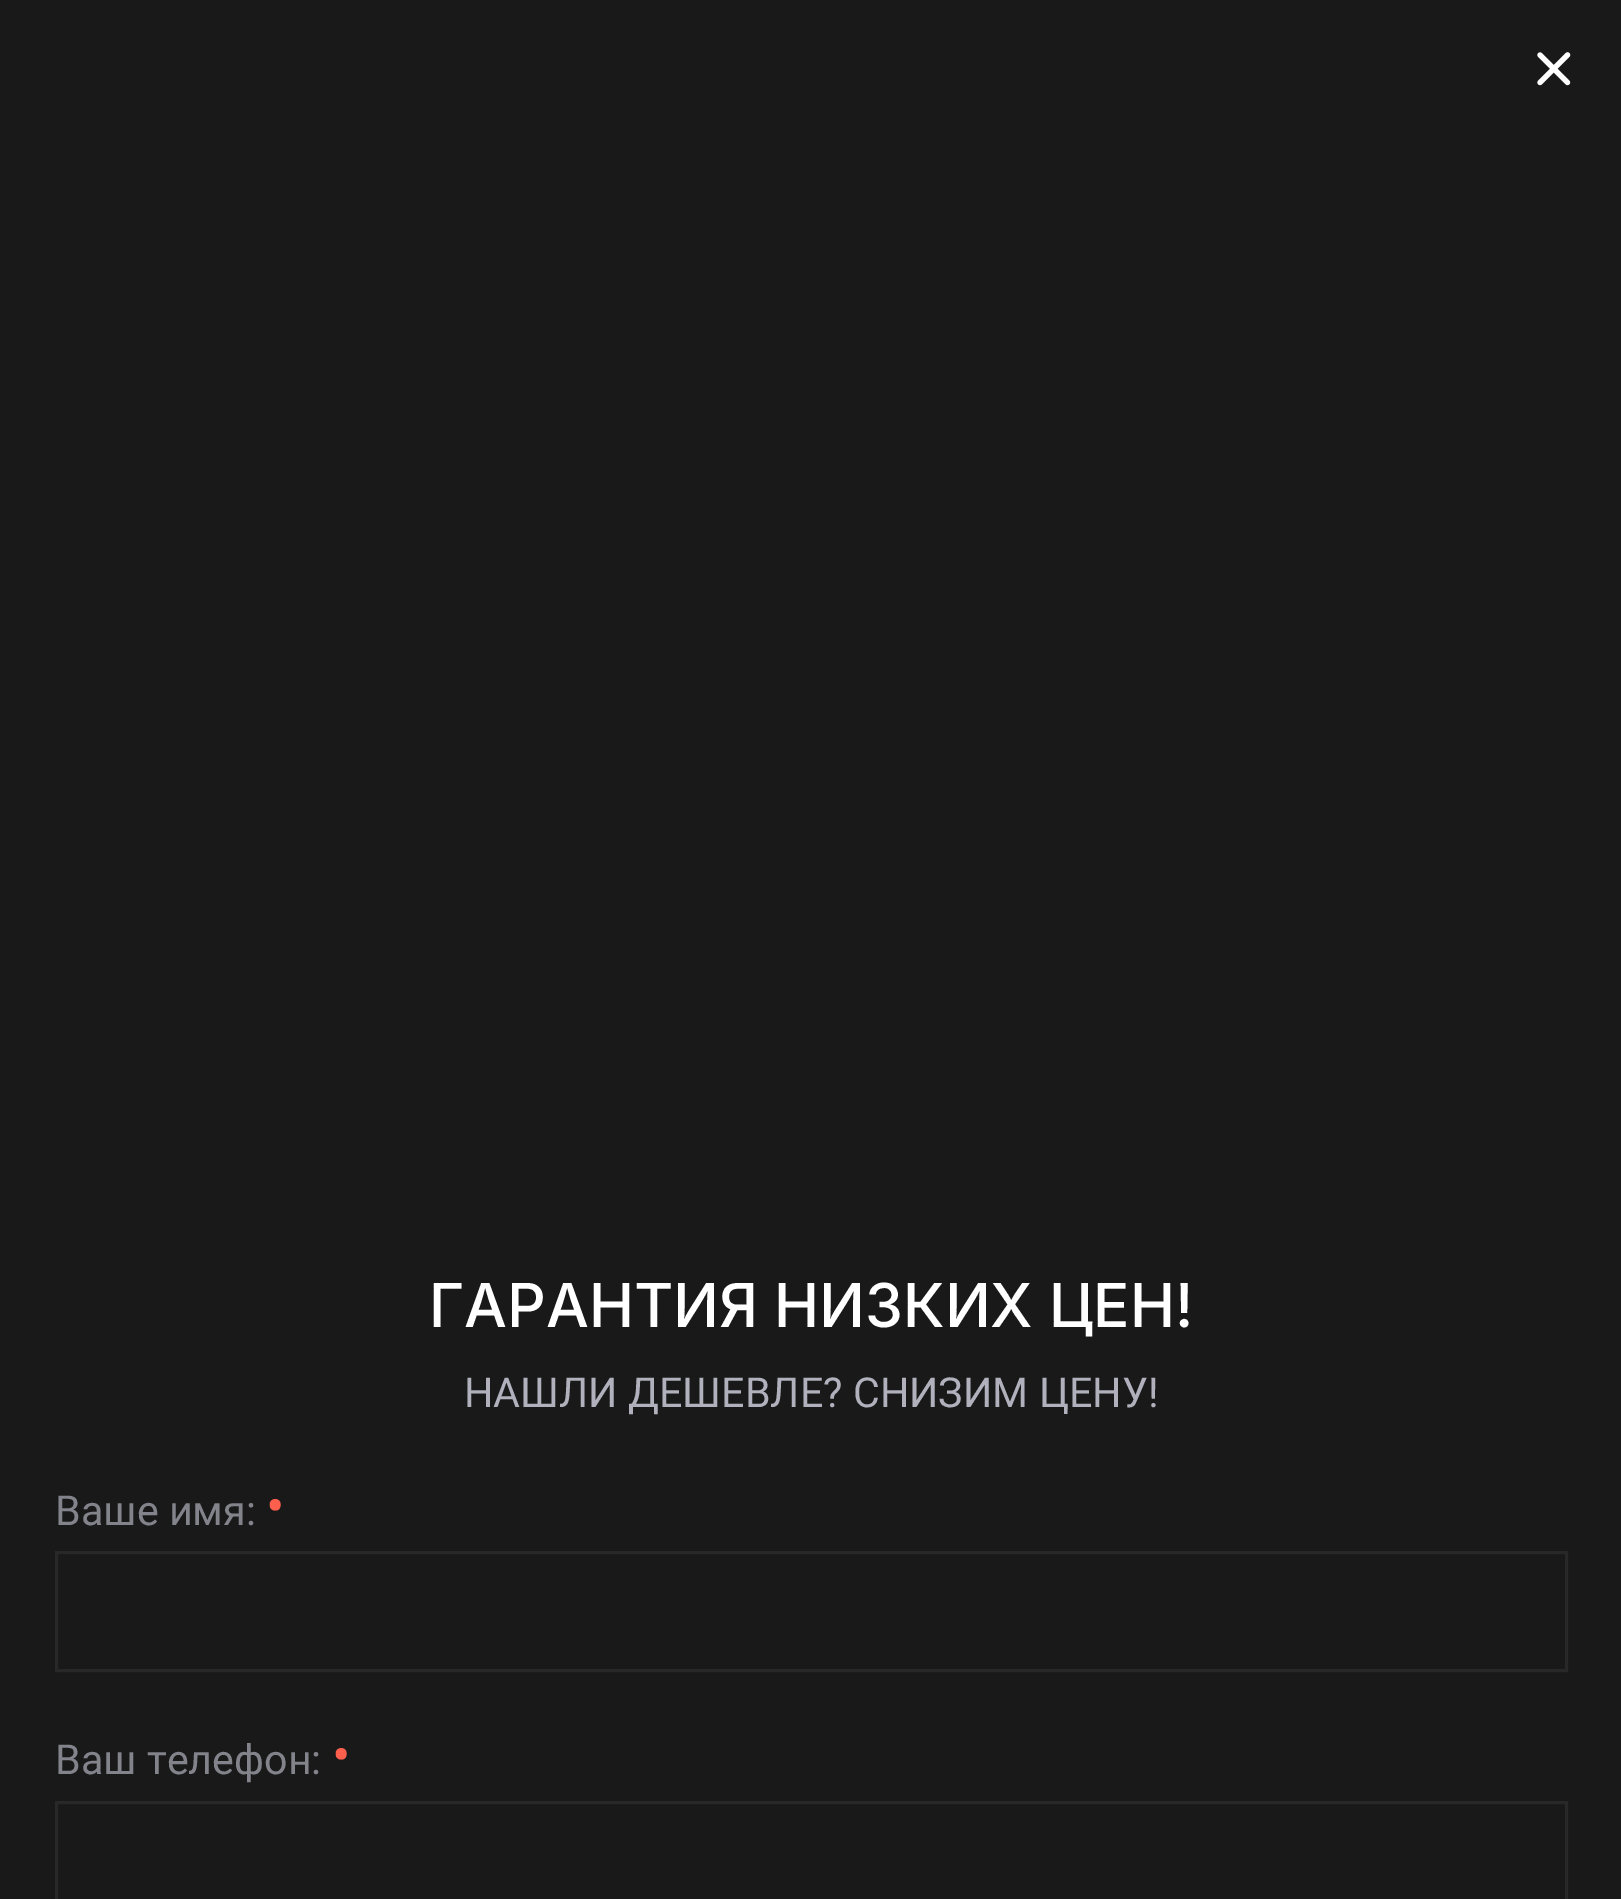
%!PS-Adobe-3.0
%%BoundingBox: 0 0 1621 1899
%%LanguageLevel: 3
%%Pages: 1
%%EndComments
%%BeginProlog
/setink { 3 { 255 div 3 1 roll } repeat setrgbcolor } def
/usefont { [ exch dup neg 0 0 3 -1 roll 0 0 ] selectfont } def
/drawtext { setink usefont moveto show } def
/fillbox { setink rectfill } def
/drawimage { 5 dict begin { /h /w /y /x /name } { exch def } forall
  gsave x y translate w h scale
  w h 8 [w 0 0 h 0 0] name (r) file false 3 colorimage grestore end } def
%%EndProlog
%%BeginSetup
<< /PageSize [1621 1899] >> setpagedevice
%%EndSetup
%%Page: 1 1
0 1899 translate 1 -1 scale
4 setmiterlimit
0 0 1621 1899 25 25 25 fillbox
(assets/img1.rgb) 1537 52 34 34 drawimage
(ГАРАНТИЯ НИЗКИХ ЦЕН!) 429 1327 /Inter-Medium 60.5 255 255 255 drawtext
(НАШЛИ ДЕШЕВЛЕ? СНИЗИМ ЦЕНУ!) 464 1407 /Roboto-Regular 41.25 176 177 188 drawtext
(Ваше имя:) 55 1525 /Roboto-Regular 41.25 131 131 140 drawtext
(•) 266 1525 /Roboto-Regular 55 255 96 78 drawtext
40 40 41 setink
3 setlinewidth
56.5 1552.5 1510 118 rectstroke
(Ваш телефон:) 55 1774 /Roboto-Regular 41.25 131 131 140 drawtext
(•) 332 1774 /Roboto-Regular 55 255 96 78 drawtext
40 40 41 setink
56.5 1802.5 1510 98 rectstroke
showpage
%%EOF
